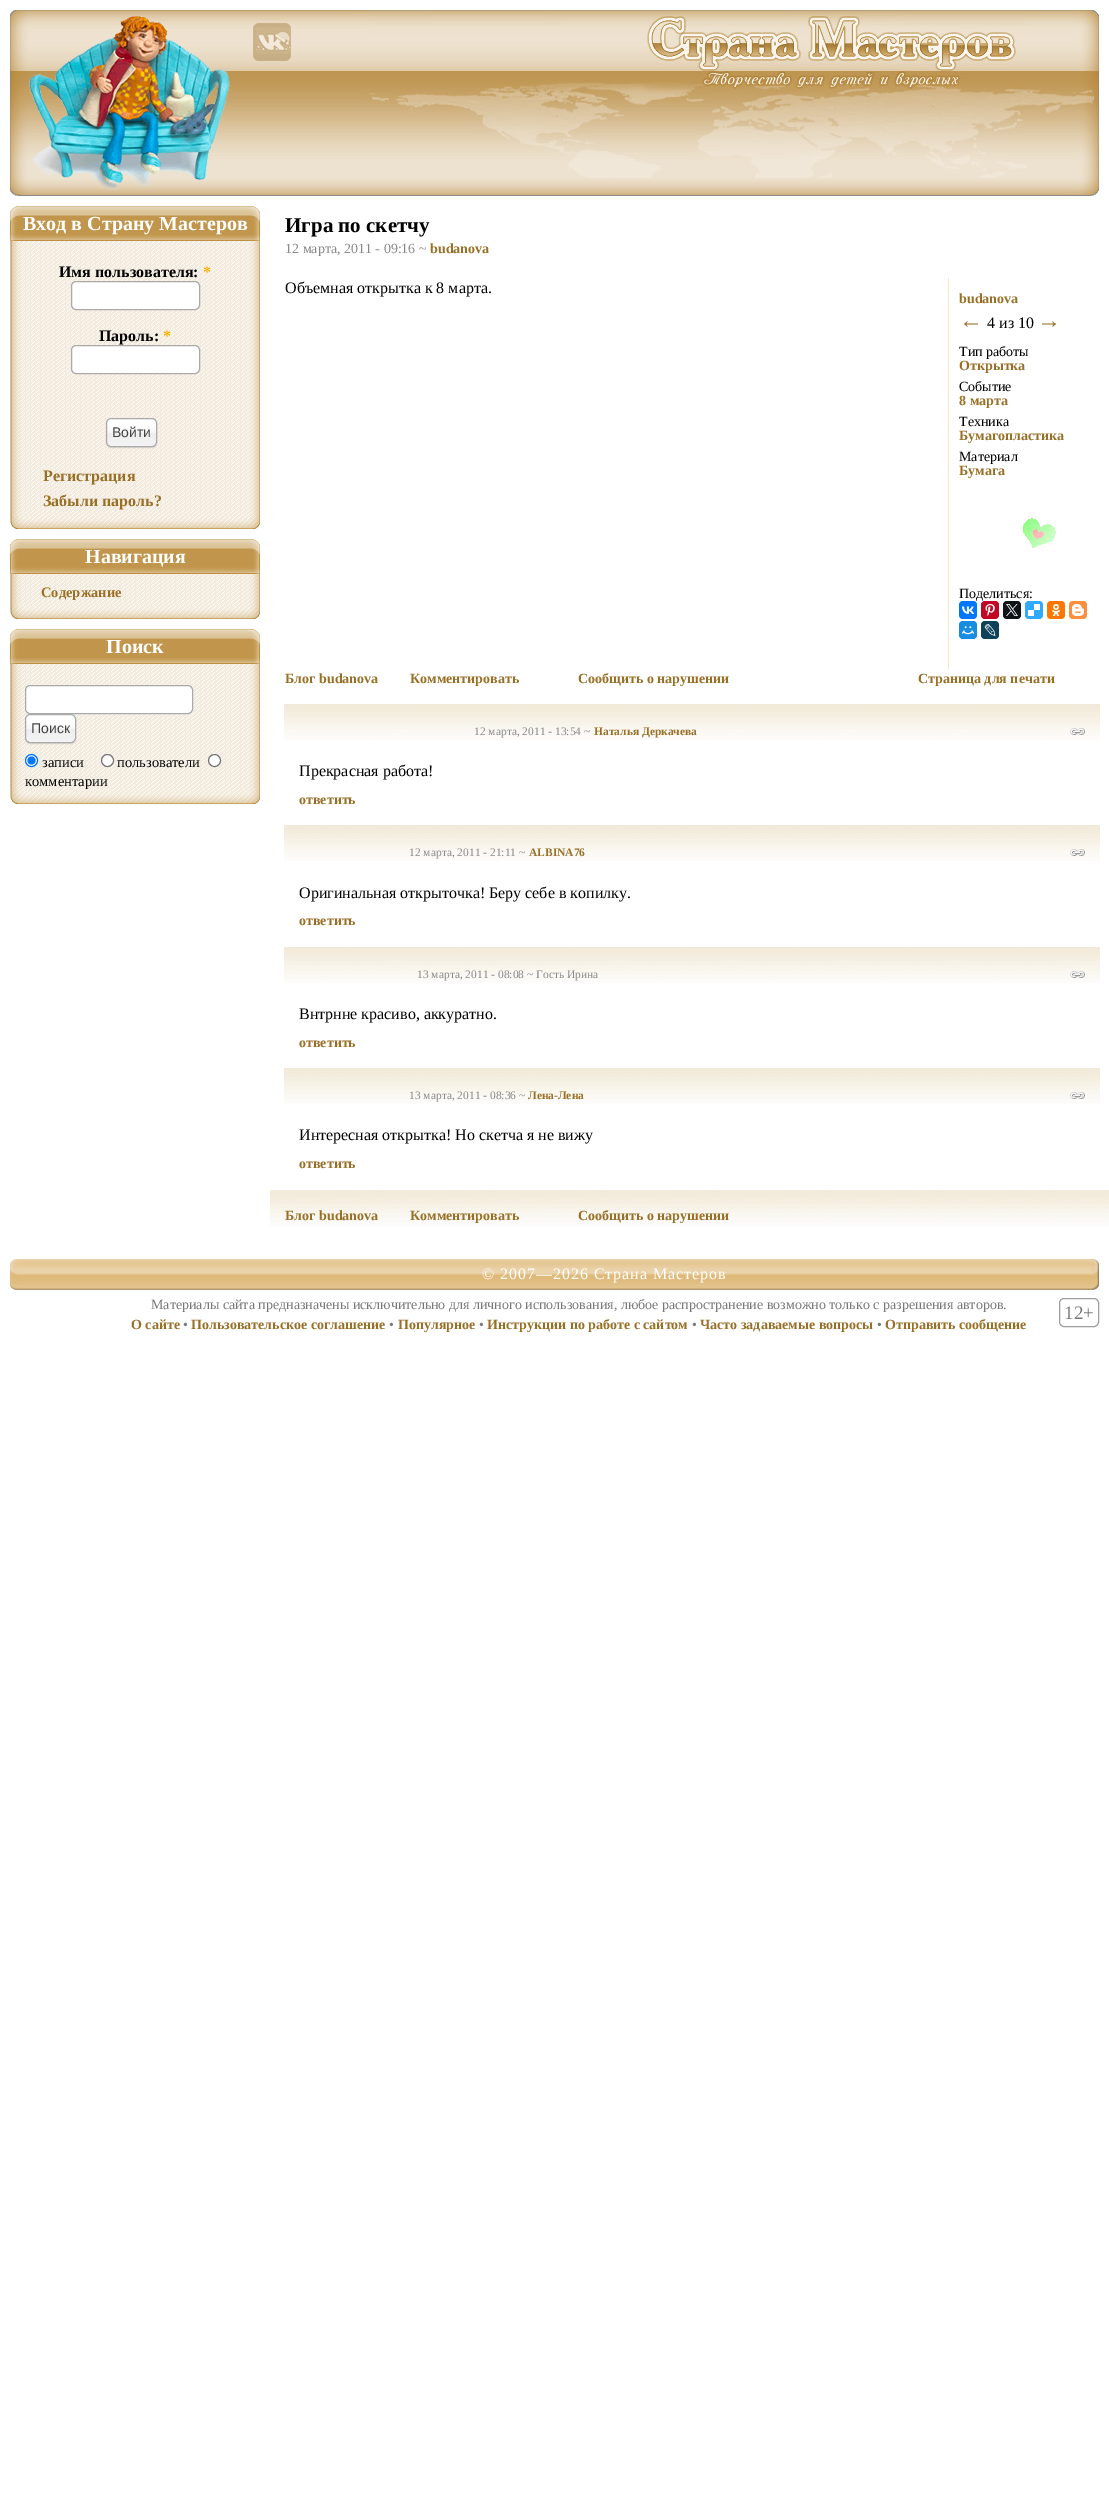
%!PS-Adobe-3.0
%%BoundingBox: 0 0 1109 2498
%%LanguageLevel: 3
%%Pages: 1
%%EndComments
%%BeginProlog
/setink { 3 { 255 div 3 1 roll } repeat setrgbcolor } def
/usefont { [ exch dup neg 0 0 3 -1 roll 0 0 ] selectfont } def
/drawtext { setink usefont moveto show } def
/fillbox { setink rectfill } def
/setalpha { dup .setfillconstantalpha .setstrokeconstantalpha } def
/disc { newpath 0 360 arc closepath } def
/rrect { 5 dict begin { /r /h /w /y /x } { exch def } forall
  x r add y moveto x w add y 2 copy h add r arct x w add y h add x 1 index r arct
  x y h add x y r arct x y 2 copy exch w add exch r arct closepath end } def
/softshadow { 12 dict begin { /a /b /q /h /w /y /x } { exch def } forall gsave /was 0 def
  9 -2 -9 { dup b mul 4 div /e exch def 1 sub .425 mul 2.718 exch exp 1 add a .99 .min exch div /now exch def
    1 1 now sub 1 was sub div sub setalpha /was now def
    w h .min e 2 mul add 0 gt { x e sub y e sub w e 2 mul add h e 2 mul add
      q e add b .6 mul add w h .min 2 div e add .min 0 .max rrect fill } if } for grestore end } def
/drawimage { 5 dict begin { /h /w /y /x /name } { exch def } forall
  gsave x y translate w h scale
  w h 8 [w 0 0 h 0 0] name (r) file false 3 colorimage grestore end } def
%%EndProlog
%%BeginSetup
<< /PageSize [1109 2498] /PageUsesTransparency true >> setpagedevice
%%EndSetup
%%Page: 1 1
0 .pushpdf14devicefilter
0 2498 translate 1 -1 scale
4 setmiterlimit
0 0 1109 2498 255 255 255 fillbox
(assets/img1.rgb) 29 10 338 186 drawimage
(assets/img2.rgb) 10 10 19 186 drawimage
(assets/img3.rgb) 367 10 732 186 drawimage
(assets/img4.rgb) 29 16 201 174 drawimage
(assets/img5.rgb) 253 23 38 38 drawimage
(assets/img6.rgb) 10 241 250 275 drawimage
(assets/img7.rgb) 10 206 250 35 drawimage
(Вход в Страну Мастеров) 23 230 /LiberationSerif-Bold 20 255 255 255 drawtext
(Имя пользователя:) 59 277 /LiberationSerif-Bold 16 0 0 0 drawtext
(*) 203 277 /LiberationSerif-Bold 16 255 174 0 drawtext
255 255 255 setink
71.5 281.5 128 28 4.5 rrect gsave fill grestore
170 170 170 setink
stroke
(Пароль:) 99 341 /LiberationSerif-Bold 16 0 0 0 drawtext
(*) 163 341 /LiberationSerif-Bold 16 255 174 0 drawtext
255 255 255 setink
71.5 345.5 128 28 4.5 rrect gsave fill grestore
170 170 170 setink
stroke
0 0 0 setink
106 419 51 29 5 0.5 0.1 softshadow
gsave
106 418 51 29 5 rrect clip newpath
gsave 106 419 moveto 157 419 lineto 157 446 lineto 106 446 lineto closepath clip newpath
<< /ShadingType 2 /ColorSpace /DeviceRGB /Coords [132 419 132 446] /Extend [true true] /Function << /FunctionType 3 /Domain [0 1] /Functions [<< /FunctionType 2 /Domain [0 1] /C0 [1 1 1] /C1 [1 1 1] /N 1 >> << /FunctionType 2 /Domain [0 1] /C0 [1 1 1] /C1 [0.965 0.965 0.965] /N 1 >> << /FunctionType 2 /Domain [0 1] /C0 [0.965 0.965 0.965] /C1 [0.933 0.933 0.933] /N 1 >> << /FunctionType 2 /Domain [0 1] /C0 [0.933 0.933 0.933] /C1 [0.957 0.957 0.957] /N 1 >>] /Bounds [0.2 0.5 0.52] /Encode [0 1 0 1 0 1 0 1] >> >> shfill grestore
grestore
170 170 170 setink
106.5 418.5 50 28 4.5 rrect stroke
(Войти) 112 437 /LiberationSans-Regular 14 68 68 68 drawtext
(Регистрация) 43 481 /LiberationSerif-Bold 16 153 111 38 drawtext
(Забыли пароль?) 43 506 /LiberationSerif-Bold 16 153 111 38 drawtext
(assets/img8.rgb) 10 516 250 13 drawimage
(assets/img9.rgb) 10 574 250 32 drawimage
(assets/img7.rgb) 10 539 250 35 drawimage
(Навигация) 85 563 /LiberationSerif-Bold 20 255 255 255 drawtext
(Содержание) 41 597 /LiberationSerif-Bold 14.5 153 111 38 drawtext
(assets/img8.rgb) 10 606 250 13 drawimage
(assets/img10.rgb) 10 664 250 127 drawimage
(assets/img7.rgb) 10 629 250 35 drawimage
(Поиск) 106 653 /LiberationSerif-Bold 20 255 255 255 drawtext
25.5 685.5 167 28 4.5 rrect gsave fill grestore
170 170 170 setink
stroke
0 0 0 setink
25 715 51 29 5 0.5 0.1 softshadow
gsave
25 714 51 29 5 rrect clip newpath
gsave 25 715 moveto 76 715 lineto 76 742 lineto 25 742 lineto closepath clip newpath
<< /ShadingType 2 /ColorSpace /DeviceRGB /Coords [51 715 51 742] /Extend [true true] /Function << /FunctionType 3 /Domain [0 1] /Functions [<< /FunctionType 2 /Domain [0 1] /C0 [1 1 1] /C1 [1 1 1] /N 1 >> << /FunctionType 2 /Domain [0 1] /C0 [1 1 1] /C1 [0.965 0.965 0.965] /N 1 >> << /FunctionType 2 /Domain [0 1] /C0 [0.965 0.965 0.965] /C1 [0.933 0.933 0.933] /N 1 >> << /FunctionType 2 /Domain [0 1] /C0 [0.933 0.933 0.933] /C1 [0.957 0.957 0.957] /N 1 >>] /Bounds [0.2 0.5 0.52] /Encode [0 1 0 1 0 1 0 1] >> >> shfill grestore
grestore
170 170 170 setink
25.5 714.5 50 28 4.5 rrect stroke
(Поиск) 31 733 /LiberationSans-Regular 14 68 68 68 drawtext
255 255 255 setink
31.5 760.5 6 disc gsave fill grestore
0 117 255 setink
stroke
31.5 760.5 4 disc fill
(записи) 42 767 /LiberationSerif-Regular 14.5 0 0 0 drawtext
255 255 255 setink
107.5 760.5 6 disc gsave fill grestore
118 118 118 setink
stroke
(пользователи) 117 767 /LiberationSerif-Regular 14.5 0 0 0 drawtext
255 255 255 setink
214.5 760.5 6 disc gsave fill grestore
118 118 118 setink
stroke
(комментарии) 25 786 /LiberationSerif-Regular 14.5 0 0 0 drawtext
(assets/img8.rgb) 10 791 250 13 drawimage
(Игра по скетчу) 285 232 /LiberationSerif-Bold 21 0 0 0 drawtext
(12 марта, 2011 - 09:16 ~) 285 253 /LiberationSerif-Regular 14 137 137 137 drawtext
(budanova) 430 253 /LiberationSerif-Bold 14 153 111 38 drawtext
(Объемная открытка к 8 марта.) 285 293 /LiberationSerif-Regular 16 0 0 0 drawtext
948 278 1 391 247 230 199 fillbox
(budanova) 959 303 /LiberationSerif-Bold 14 153 111 38 drawtext
(←) 959 328 /LiberationSerif-Bold 24 153 111 38 drawtext
(4 из 10) 987 328 /LiberationSerif-Regular 16 0 0 0 drawtext
(→) 1037 328 /LiberationSerif-Bold 24 153 111 38 drawtext
(Тип работы) 959 356 /LiberationSerif-Regular 14 0 0 0 drawtext
(Открытка) 959 370 /LiberationSerif-Bold 14 153 111 38 drawtext
(Событие) 959 391 /LiberationSerif-Regular 14 0 0 0 drawtext
(8 марта) 959 405 /LiberationSerif-Bold 14 153 111 38 drawtext
(Техника) 959 426 /LiberationSerif-Regular 14 0 0 0 drawtext
(Бумагопластика) 959 440 /LiberationSerif-Bold 14 153 111 38 drawtext
(Материал) 959 461 /LiberationSerif-Regular 14 0 0 0 drawtext
(Бумага) 959 475 /LiberationSerif-Bold 14 153 111 38 drawtext
(assets/img11.rgb) 1023 518 33 30 drawimage
(assets/img12.rgb) 1033 529 11 10 drawimage
(Поделиться:) 959 598 /LiberationSerif-Regular 14 0 0 0 drawtext
0 119 255 setink
959 601 18 18 4 rrect fill
(assets/img13.rgb) 962 606 12 8 drawimage
194 7 36 setink
981 601 18 18 4 rrect fill
(assets/img14.rgb) 985 604 10 12 drawimage
15 20 25 setink
1003 601 18 18 4 rrect fill
(assets/img15.rgb) 1006 604 12 12 drawimage
49 169 255 setink
1025 601 18 18 4 rrect fill
(assets/img16.rgb) 1028 604 12 12 drawimage
255 119 0 setink
1047 601 18 18 4 rrect fill
(assets/img17.rgb) 1052 604 8 12 drawimage
251 143 61 setink
1069 601 18 18 4 rrect fill
(assets/img18.rgb) 1072 604 12 12 drawimage
22 141 226 setink
959 621 18 18 4 rrect fill
(assets/img19.rgb) 962 626 12 9 drawimage
13 66 90 setink
981 621 18 18 4 rrect fill
(assets/img20.rgb) 984 624 12 12 drawimage
(Блог budanova) 285 683 /LiberationSerif-Bold 14 153 111 38 drawtext
(Комментировать) 410 683 /LiberationSerif-Bold 14 153 111 38 drawtext
(Сообщить о нарушении) 578 683 /LiberationSerif-Bold 14 153 111 38 drawtext
(Страница для печати) 918 683 /LiberationSerif-Bold 14 153 111 38 drawtext
(assets/img21.rgb) 284 704 816 36 drawimage
(12 марта, 2011 - 13:54 ~) 474 735 /LiberationSerif-Regular 11.5 137 137 137 drawtext
(Наталья Деркачева) 594 735 /LiberationSerif-Bold 11.5 153 111 38 drawtext
(assets/img22.rgb) 1070 728 15 7 drawimage
(Прекрасная работа!) 299 776 /LiberationSerif-Regular 16 0 0 0 drawtext
(ответить) 299 804 /LiberationSerif-Bold 14 153 111 38 drawtext
(assets/img21.rgb) 284 825 816 36 drawimage
(12 марта, 2011 - 21:11 ~) 409 856 /LiberationSerif-Regular 11.5 137 137 137 drawtext
(ALBINA76) 529 856 /LiberationSerif-Bold 11.5 153 111 38 drawtext
(assets/img22.rgb) 1070 849 15 7 drawimage
(Оригинальная открыточка! Беру себе в копилку.) 299 898 /LiberationSerif-Regular 16 0 0 0 drawtext
(ответить) 299 925 /LiberationSerif-Bold 14 153 111 38 drawtext
(assets/img21.rgb) 284 947 816 36 drawimage
(13 марта, 2011 - 08:08 ~ Гость Ирина) 417 978 /LiberationSerif-Regular 11.5 137 137 137 drawtext
(assets/img22.rgb) 1070 971 15 7 drawimage
(Внтрнне красиво, аккуратно.) 299 1019 /LiberationSerif-Regular 16 0 0 0 drawtext
(ответить) 299 1047 /LiberationSerif-Bold 14 153 111 38 drawtext
(assets/img21.rgb) 284 1068 816 36 drawimage
(13 марта, 2011 - 08:36 ~) 409 1099 /LiberationSerif-Regular 11.5 137 137 137 drawtext
(Лена-Лена) 528 1099 /LiberationSerif-Bold 11.5 153 111 38 drawtext
(assets/img22.rgb) 1070 1092 15 7 drawimage
(Интересная открытка! Но скетча я не вижу) 299 1140 /LiberationSerif-Regular 16 0 0 0 drawtext
(ответить) 299 1168 /LiberationSerif-Bold 14 153 111 38 drawtext
(assets/img23.rgb) 270 1190 839 36 drawimage
(Блог budanova) 285 1220 /LiberationSerif-Bold 14 153 111 38 drawtext
(Комментировать) 410 1220 /LiberationSerif-Bold 14 153 111 38 drawtext
(Сообщить о нарушении) 578 1220 /LiberationSerif-Bold 14 153 111 38 drawtext
(assets/img24.rgb) 10 1259 8 31 drawimage
(assets/img25.rgb) 1091 1259 8 31 drawimage
(assets/img26.rgb) 18 1259 1073 31 drawimage
/LiberationSerif-Regular 16 usefont
255 255 255 setink
482 1279 moveto 0.95 0 (© 2007—2026 Страна Мастеров) ashow
(Материалы сайта предназначены исключительно для личного использования, любое распространение возможно только с разрешения авторов.) 151 1309 /LiberationSerif-Regular 14 121 121 121 drawtext
(О сайте) 131 1329 /LiberationSerif-Bold 14 153 111 38 drawtext
(•) 183 1329 /LiberationSerif-Regular 14 121 121 121 drawtext
(Пользовательское соглашение) 191 1329 /LiberationSerif-Bold 14 153 111 38 drawtext
(•) 389 1329 /LiberationSerif-Regular 14 121 121 121 drawtext
(Популярное) 398 1329 /LiberationSerif-Bold 14 153 111 38 drawtext
(•) 479 1329 /LiberationSerif-Regular 14 121 121 121 drawtext
(Инструкции по работе с сайтом) 487 1329 /LiberationSerif-Bold 14 153 111 38 drawtext
(•) 692 1329 /LiberationSerif-Regular 14 121 121 121 drawtext
(Часто задаваемые вопросы) 700 1329 /LiberationSerif-Bold 14 153 111 38 drawtext
(•) 877 1329 /LiberationSerif-Regular 14 121 121 121 drawtext
(Отправить сообщение) 885 1329 /LiberationSerif-Bold 14 153 111 38 drawtext
158 158 158 setink
1059.5 1298.5 39 28 4.5 rrect stroke
(12+) 1064 1319 /LiberationSerif-Regular 19 121 121 121 drawtext
.poppdf14devicefilter showpage
%%EOF
